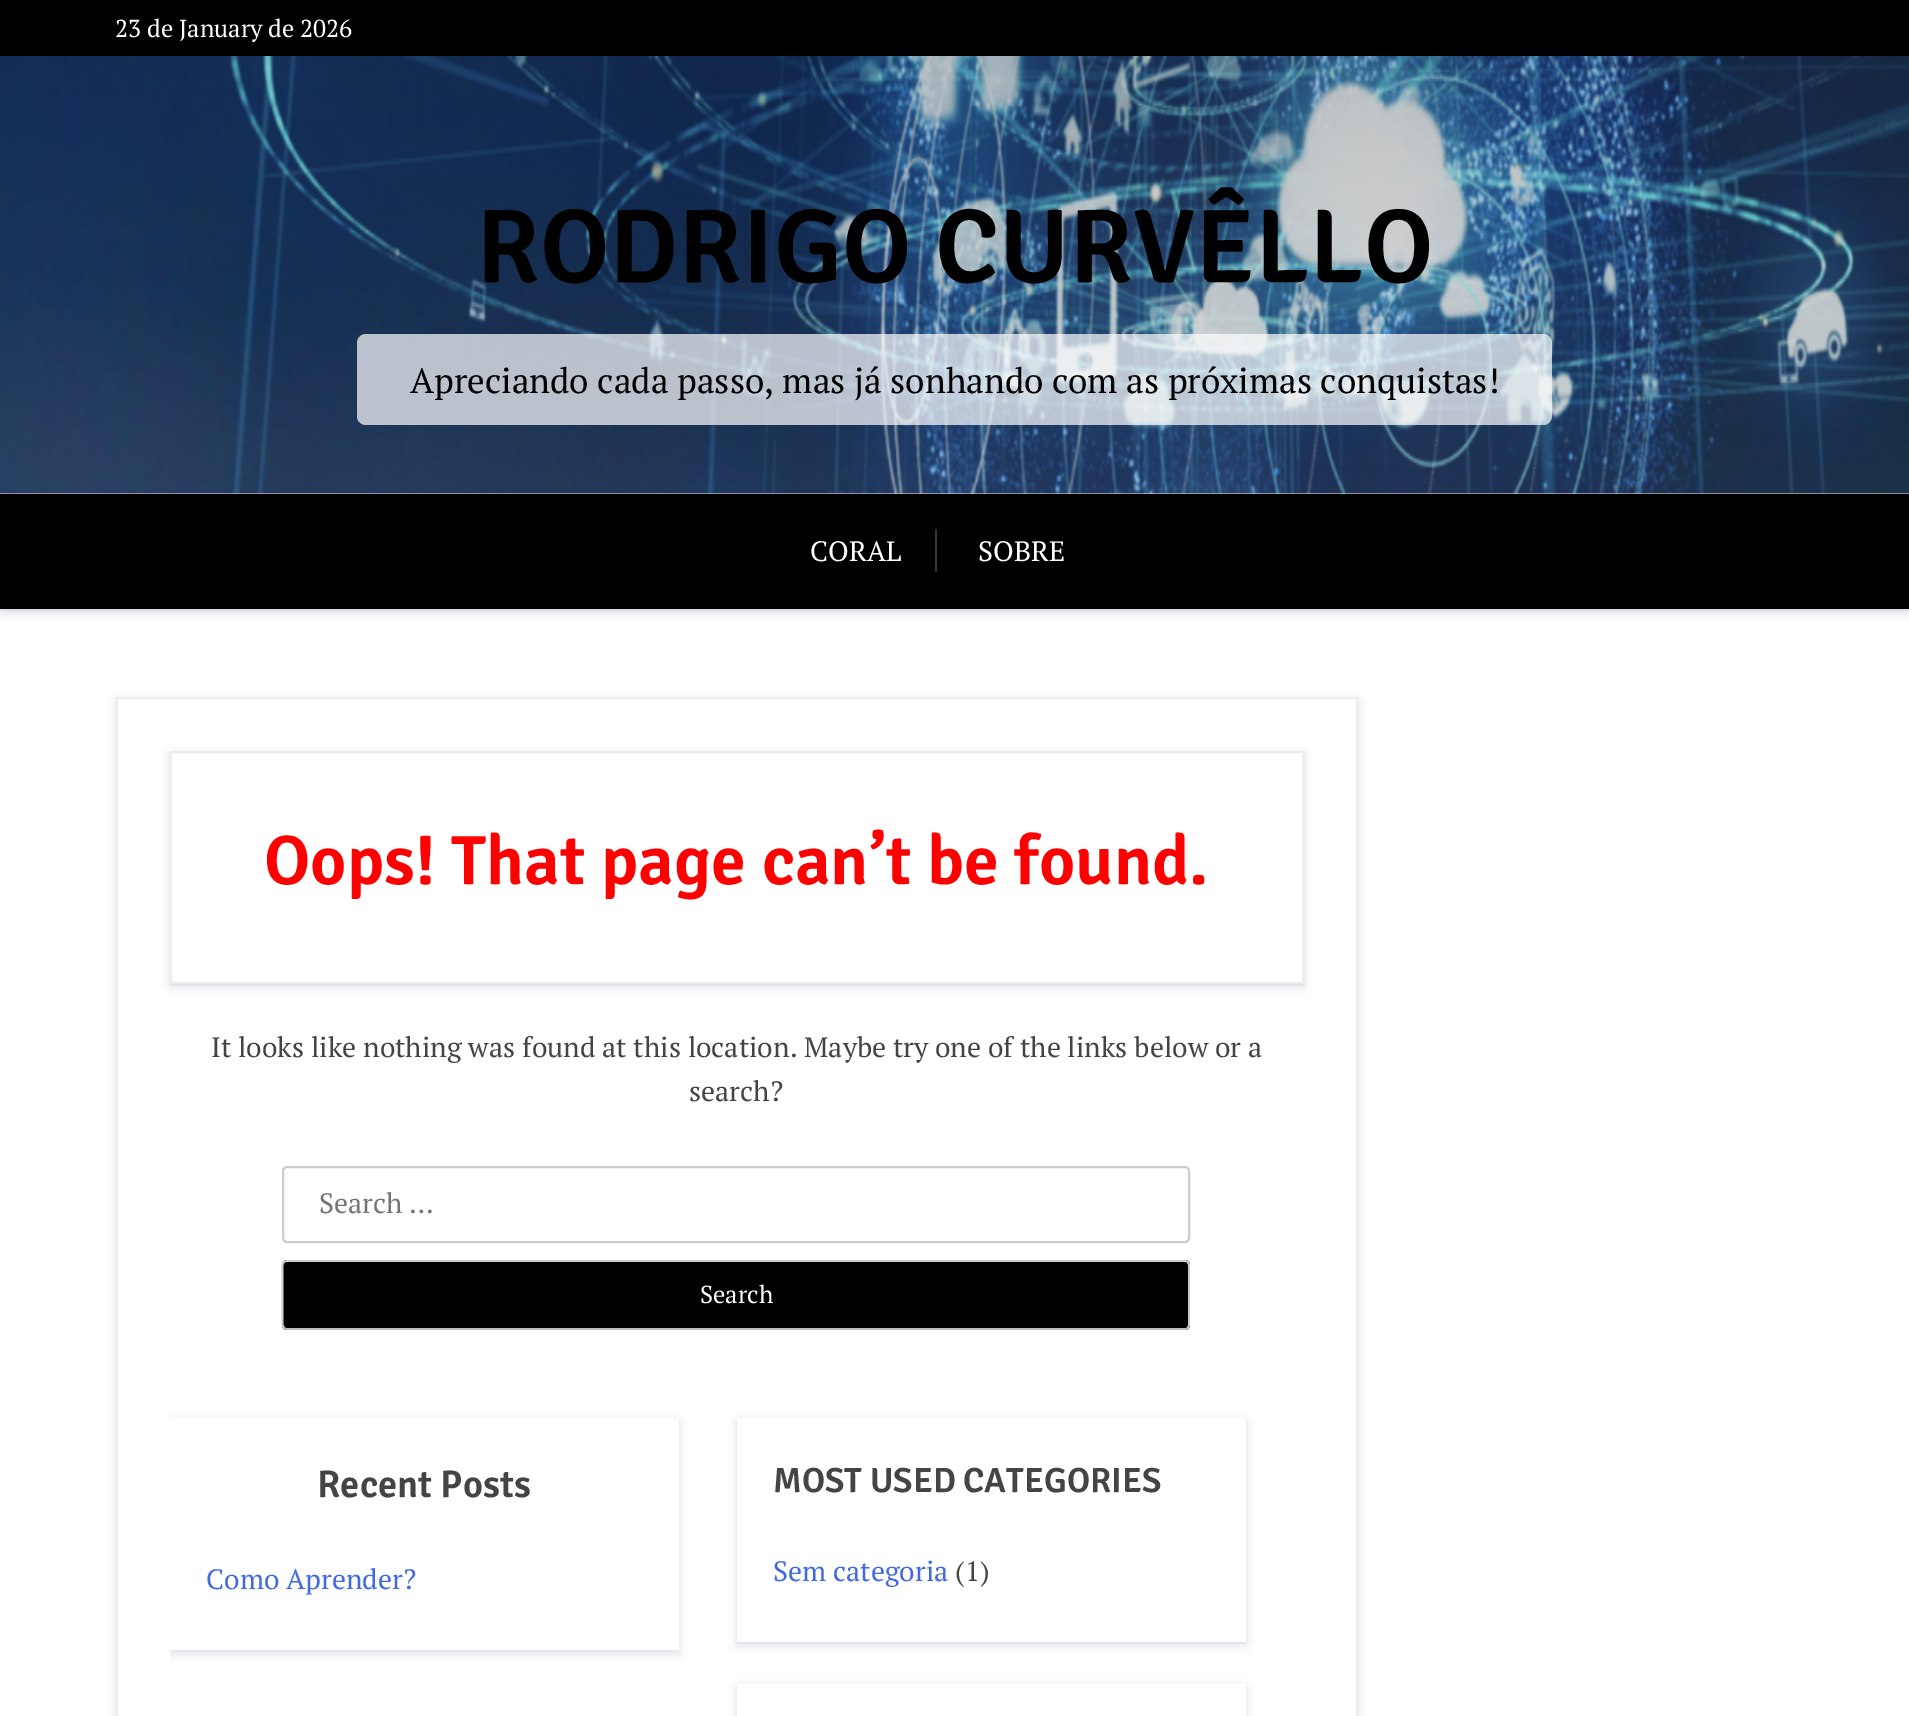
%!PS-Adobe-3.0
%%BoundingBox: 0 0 1909 1716
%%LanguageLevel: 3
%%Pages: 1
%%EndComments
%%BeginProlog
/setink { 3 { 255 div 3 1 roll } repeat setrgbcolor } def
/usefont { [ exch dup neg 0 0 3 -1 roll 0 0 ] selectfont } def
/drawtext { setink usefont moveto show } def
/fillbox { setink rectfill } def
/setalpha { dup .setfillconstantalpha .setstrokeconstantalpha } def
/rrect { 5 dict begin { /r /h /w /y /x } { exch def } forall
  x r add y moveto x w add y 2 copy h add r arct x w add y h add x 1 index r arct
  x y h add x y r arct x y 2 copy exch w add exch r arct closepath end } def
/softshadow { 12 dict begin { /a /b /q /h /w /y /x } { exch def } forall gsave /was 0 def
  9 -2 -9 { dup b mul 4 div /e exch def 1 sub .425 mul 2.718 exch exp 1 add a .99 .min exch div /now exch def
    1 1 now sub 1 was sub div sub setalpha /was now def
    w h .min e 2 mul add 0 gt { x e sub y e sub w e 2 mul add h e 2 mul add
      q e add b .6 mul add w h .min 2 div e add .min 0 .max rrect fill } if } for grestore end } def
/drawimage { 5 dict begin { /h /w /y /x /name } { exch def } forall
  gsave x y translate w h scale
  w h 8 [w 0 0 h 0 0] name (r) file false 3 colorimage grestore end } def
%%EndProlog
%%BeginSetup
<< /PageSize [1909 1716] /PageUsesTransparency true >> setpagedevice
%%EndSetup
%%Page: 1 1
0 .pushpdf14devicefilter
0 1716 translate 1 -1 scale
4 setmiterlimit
0 0 1909 1716 255 255 255 fillbox
0 0 1909 56 0 0 0 fillbox
(23 de January de 2026) 115 37 /PTSerif-Regular 24.5 255 255 255 drawtext
0 0 0 setink
0 58 1909 553 0 1 0.05 softshadow
50 50 105 setink
0 60 1909 553 0 4.5 0.15 softshadow
0 493 1909 1 241 241 241 fillbox
(assets/img1.rgb) 0 56 1909 438 drawimage
(RODRIGO CURVÊLLO) 476 282 /Signika-SemiBold 105 0 0 0 drawtext
0.7 setalpha
255 255 255 setink
357 334 1195 91 9 rrect fill
1 setalpha
(Apreciando cada passo, mas já sonhando com as próximas conquistas!) 410 393 /PTSerif-Regular 35 0 0 0 drawtext
0 494 1909 115 0 0 0 fillbox
(CORAL) 810 561 /PTSerif-Regular 28 255 255 255 drawtext
935 529 2 43 51 51 51 fillbox
(SOBRE) 978 561 /PTSerif-Regular 28 255 255 255 drawtext
gsave
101 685 moveto 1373 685 lineto 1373 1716 lineto 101 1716 lineto closepath 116 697 moveto 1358 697 lineto 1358 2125 lineto 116 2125 lineto closepath eoclip newpath
50 50 105 setink
116 700 1242 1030 0 4.5 0.15 softshadow
grestore
237 237 237 setink
2 setlinewidth
117 698 1240 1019 rectstroke
0 0 0 setink
170 753 1134 232 0 1 0.05 softshadow
50 50 105 setink
170 754 1134 233 0 4.5 0.15 softshadow
255 255 255 setink
171 752 moveto 1303 752 lineto 1303 983 lineto 171 983 lineto closepath gsave fill grestore
237 237 237 setink
stroke
(Oops! That page can’t be found.) 264 884 /Signika-SemiBold 70 255 0 0 drawtext
(It looks like nothing was found at this location. Maybe try one of the links below or a) 211 1057 /PTSerif-Regular 28 68 68 68 drawtext
(search?) 689 1101 /PTSerif-Regular 28 68 68 68 drawtext
204 204 204 setink
283 1167 906 75 4 rrect stroke
(Search …) 319 1213 /PTSerif-Regular 28 117 117 117 drawtext
0 0 0 setink
282 1260 908 70 5 rrect fill
187 187 187 setink
1.8 setlinewidth
1188 1328 moveto 1187 1328.5 1186 1329 1185 1329 curveto 287 1329 lineto 286 1329 284.5 1328.5 284 1328 curveto stroke
204 204 204 setink
284 1328 moveto 282.5 1325 lineto 282.5 1264.5 lineto 283.5 1262.5 lineto 284.5 1261.5 285.5 1261 287 1261 curveto 1185 1261 lineto 1186 1261 1187.5 1261.5 1188 1262.5 curveto 1189 1264.5 lineto 1189 1325 lineto 1188 1328 lineto stroke
(Search) 700 1303 /PTSerif-Regular 24.5 255 255 255 drawtext
gsave
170 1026 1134 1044 rectclip
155 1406 moveto 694 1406 lineto 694 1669 lineto 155 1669 lineto closepath 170 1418 moveto 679 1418 lineto 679 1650 lineto 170 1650 lineto closepath eoclip newpath
50 50 105 setink
170 1421 509 233 0 4.5 0.15 softshadow
grestore
(Recent Posts) 317 1497 /Signika-SemiBold 38.5 68 68 68 drawtext
(Como Aprender?) 206 1589 /PTSerif-Regular 28 65 105 225 drawtext
0 0 0 setink
737 1419 509 224 0 1 0.05 softshadow
50 50 105 setink
737 1421 509 224 0 4.5 0.15 softshadow
737 1418 509 224 255 255 255 fillbox
(MOST USED CATEGORIES) 773 1492 /Signika-SemiBold 35 68 68 68 drawtext
(Sem categoria) 773 1581 /PTSerif-Regular 28 65 105 225 drawtext
(\(1\)) 955 1581 /PTSerif-Regular 28 68 68 68 drawtext
gsave
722 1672 moveto 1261 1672 lineto 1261 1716 lineto 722 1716 lineto closepath 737 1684 moveto 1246 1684 lineto 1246 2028 lineto 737 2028 lineto closepath eoclip newpath
50 50 105 setink
737 1687 509 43 0 4.5 0.15 softshadow
grestore
.poppdf14devicefilter showpage
%%EOF
